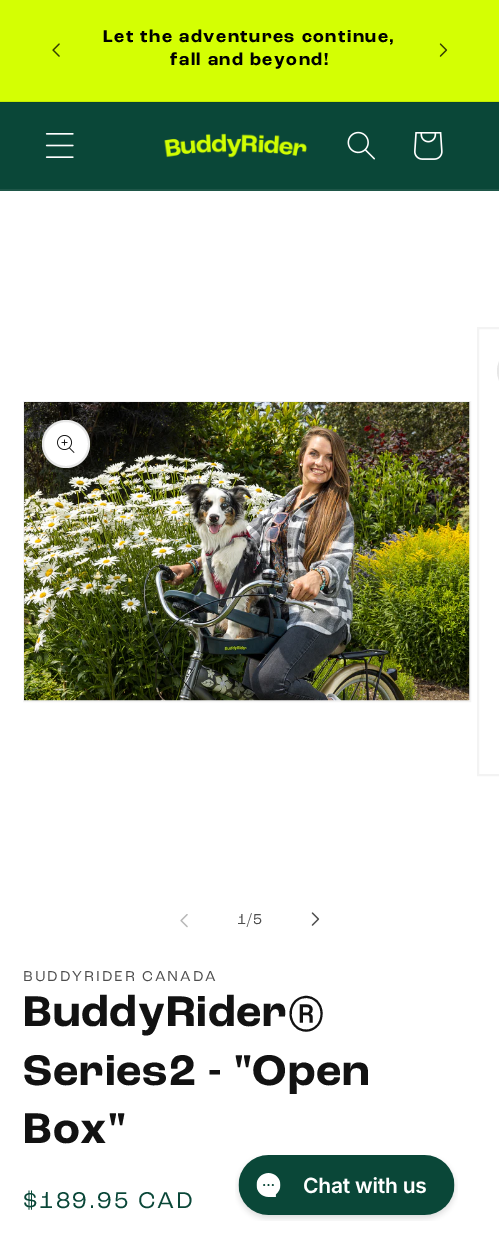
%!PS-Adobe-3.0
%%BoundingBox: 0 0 499 1255
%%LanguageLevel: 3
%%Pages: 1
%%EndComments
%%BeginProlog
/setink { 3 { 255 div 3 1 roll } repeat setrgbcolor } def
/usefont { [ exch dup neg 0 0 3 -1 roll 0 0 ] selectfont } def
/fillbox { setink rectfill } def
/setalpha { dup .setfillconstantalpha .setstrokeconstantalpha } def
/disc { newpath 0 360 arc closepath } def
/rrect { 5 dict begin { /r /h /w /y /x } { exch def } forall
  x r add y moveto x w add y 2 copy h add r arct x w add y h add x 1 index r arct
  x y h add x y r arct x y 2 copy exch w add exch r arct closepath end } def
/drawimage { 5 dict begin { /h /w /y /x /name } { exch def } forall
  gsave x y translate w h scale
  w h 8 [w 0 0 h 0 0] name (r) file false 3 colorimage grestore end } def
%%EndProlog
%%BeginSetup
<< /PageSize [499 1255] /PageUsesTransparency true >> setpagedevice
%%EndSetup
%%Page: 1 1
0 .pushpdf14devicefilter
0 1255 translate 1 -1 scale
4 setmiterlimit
0 0 499 1255 255 255 255 fillbox
0 0 499 101 212 255 3 fillbox
0 101 499 1 195 235 3 fillbox
(assets/img1.rgb) 52 43 8 14 drawimage
/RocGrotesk-Bold 18 usefont
0 0 0 setink
103 42 moveto 1.5 0 (Let the adventures continue,) ashow
170 65 moveto 1.5 0 (fall and beyond!) ashow
(assets/img2.rgb) 439 43 9 14 drawimage
0 103 499 86 10 71 56 fillbox
0 102 499 1 9 65 52 fillbox
0 189 499 2 30 86 72 fillbox
(assets/img3.rgb) 45 133 29 25 drawimage
(assets/img4.rgb) 164 133 143 25 drawimage
(assets/img5.rgb) 347 131 28 29 drawimage
(assets/img6.rgb) 414 132 29 28 drawimage
243 243 243 setink
2 setlinewidth
24 402 446 299 rectstroke
(assets/img7.rgb) 24 402 446 299 drawimage
255 255 255 setink
66 444 24 disc fill
0.1 setalpha
18 18 18 setink
66 444 23 disc stroke
1 setalpha
(assets/img8.rgb) 57 435 18 18 drawimage
243 243 243 setink
478 328 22 447 rectstroke
231 231 231 setink
498 348 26 46 23 rrect stroke
(assets/img9.rgb) 180 914 8 14 drawimage
/RocGrotesk-Regular 15 usefont
77 77 77 setink
237 924 moveto 1 0 (1/5) ashow
(assets/img10.rgb) 311 912 9 14 drawimage
23 981 moveto 2 0 (BUDDYRIDER CANADA) ashow
/RocGrotesk-Bold 45 usefont
18 18 18 setink
23 1026 moveto 0.9 0 (BuddyRider®) ashow
23 1085 moveto 0.9 0 (Series2 - "Open) ashow
23 1143 moveto 0.9 0 (Box") ashow
/RocGrotesk-Regular 24 usefont
10 71 56 setink
23 1208 moveto 2 0 ($189.95 CAD) ashow
(assets/img11.rgb) 235 1155 223 66 drawimage
.poppdf14devicefilter showpage
%%EOF
